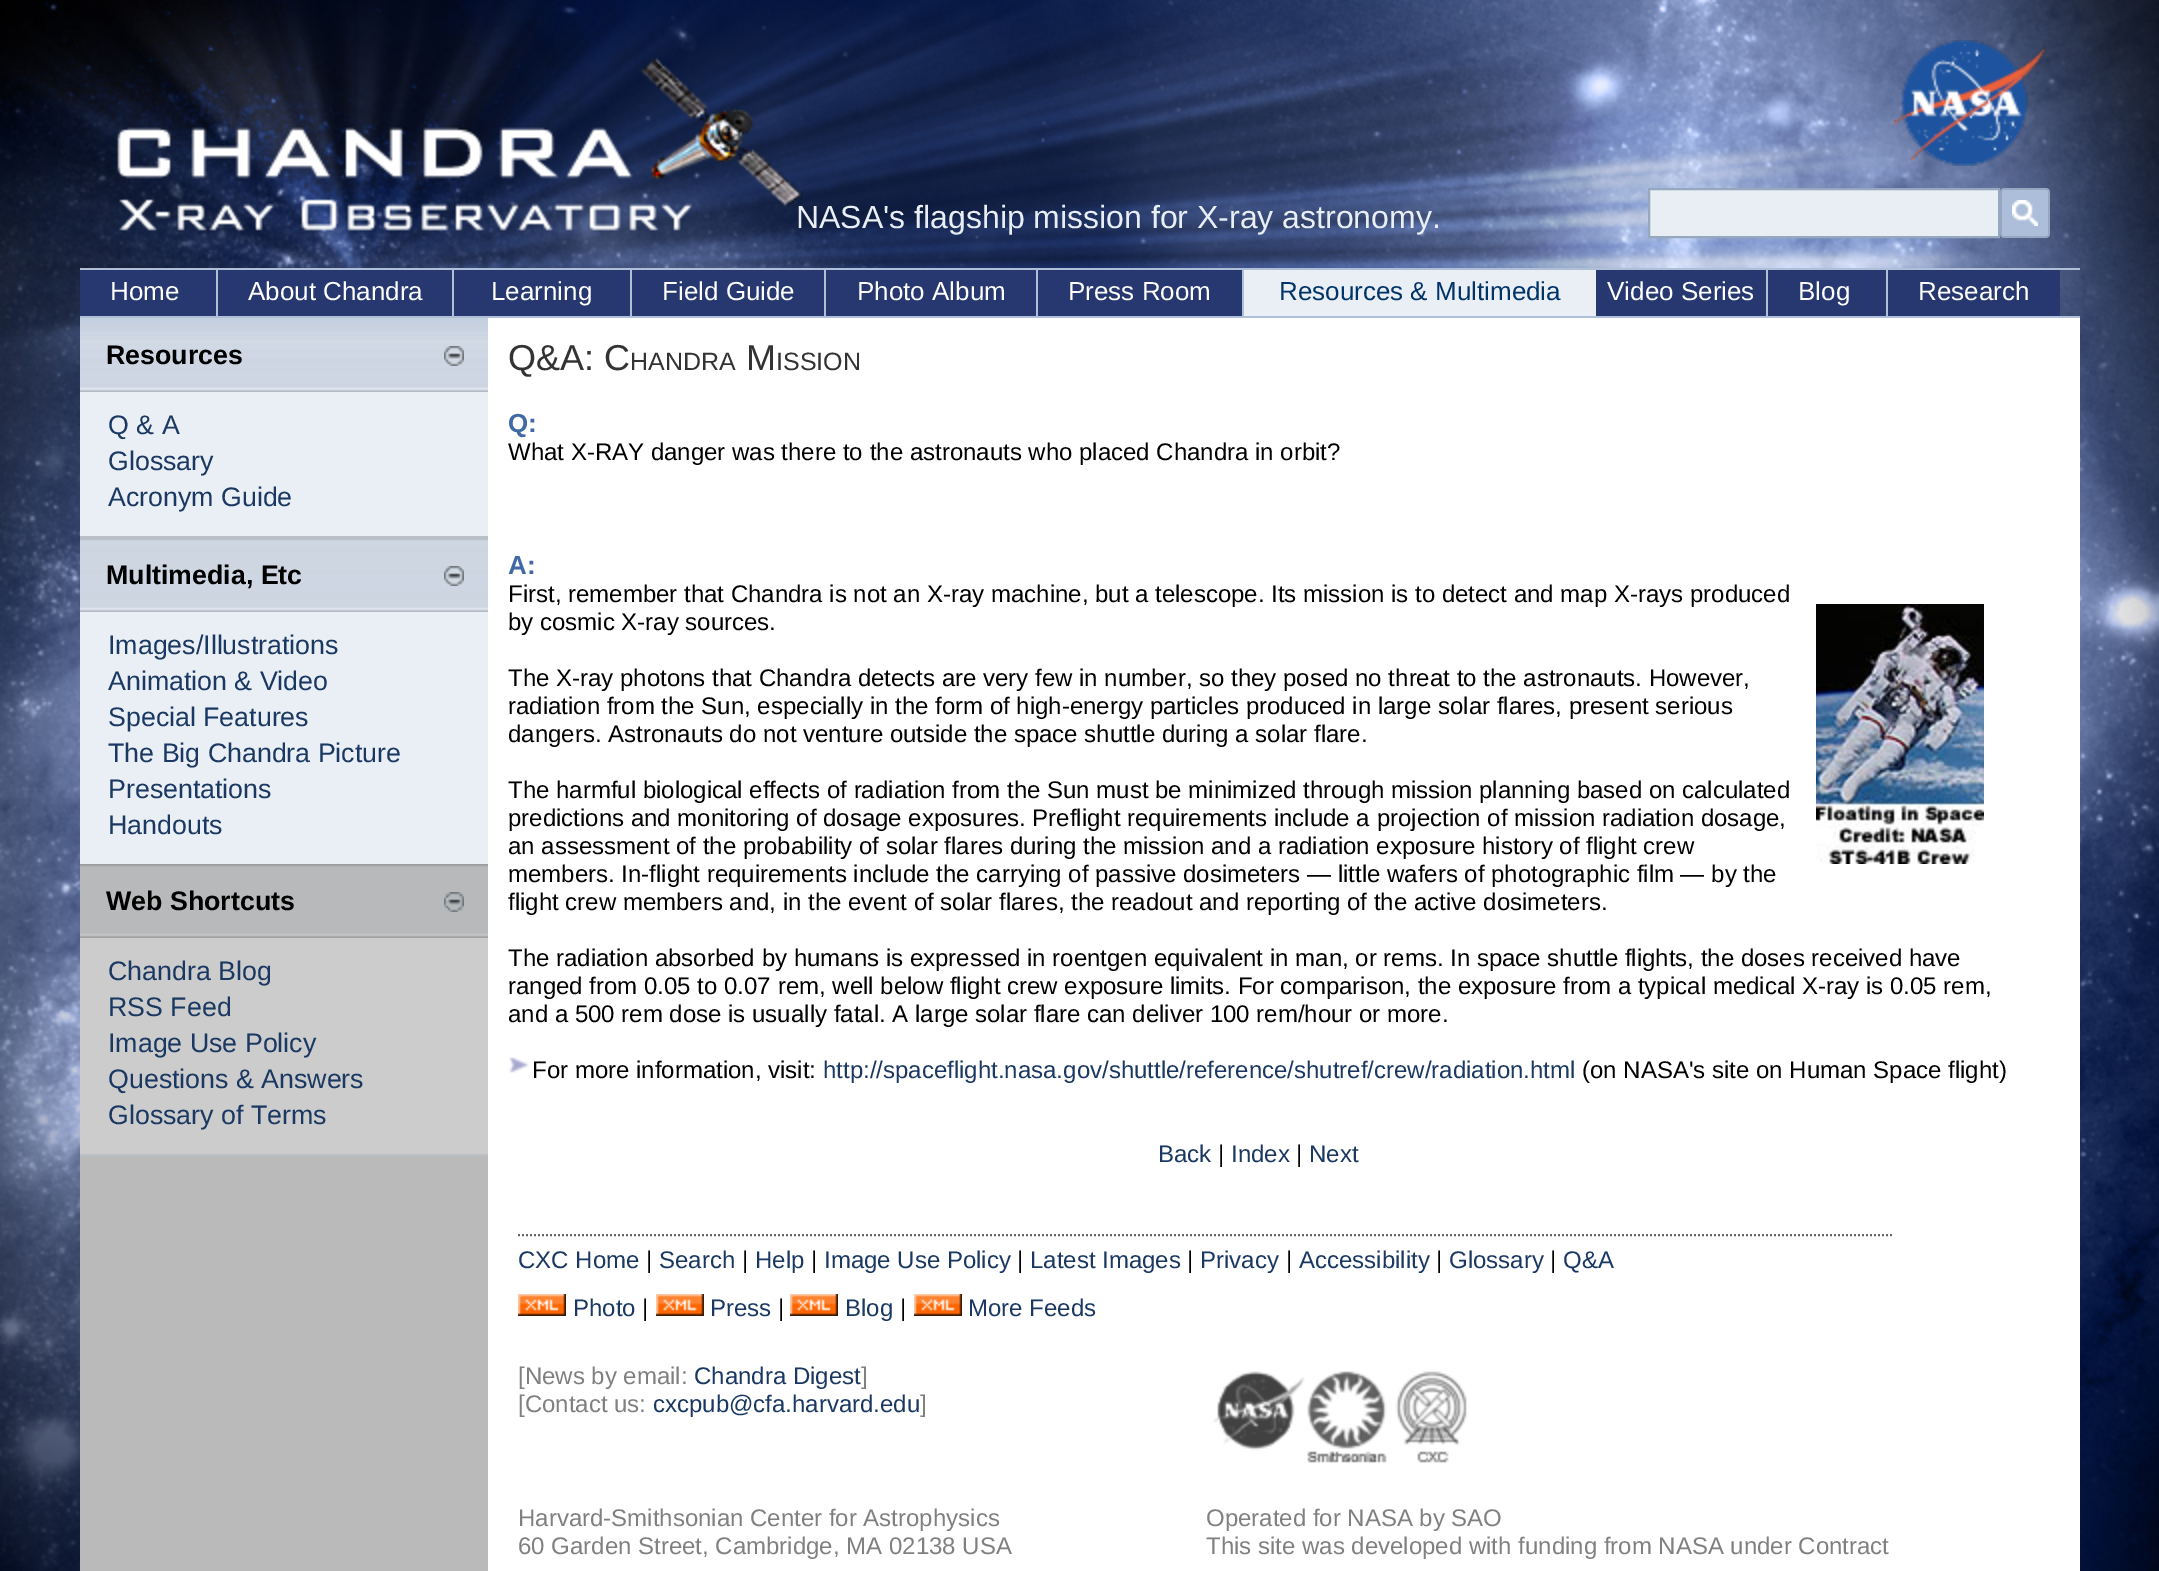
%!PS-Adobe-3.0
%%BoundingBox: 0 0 2159 1571
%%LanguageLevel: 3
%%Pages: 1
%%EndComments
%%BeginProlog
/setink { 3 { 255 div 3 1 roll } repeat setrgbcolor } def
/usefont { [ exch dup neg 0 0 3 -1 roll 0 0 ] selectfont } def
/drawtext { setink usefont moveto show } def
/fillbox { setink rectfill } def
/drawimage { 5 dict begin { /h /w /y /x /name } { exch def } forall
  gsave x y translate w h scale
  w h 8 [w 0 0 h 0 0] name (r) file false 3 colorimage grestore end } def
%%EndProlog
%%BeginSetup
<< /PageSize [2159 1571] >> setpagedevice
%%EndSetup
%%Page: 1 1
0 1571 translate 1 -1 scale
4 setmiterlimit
0 0 2159 1571 255 255 255 fillbox
(assets/img1.rgb) 0 0 2159 1571 drawimage
(assets/img2.rgb) 117 57 1116 185 drawimage
(assets/img3.rgb) 1894 40 152 126 drawimage
(NASA's flagship mission for X-ray astronomy.) 796 228 /LiberationSans-Regular 32 233 238 244 drawtext
1649 189 moveto 1999 189 lineto 1999 237 lineto 1649 237 lineto closepath gsave fill grestore
150 168 190 setink
2 setlinewidth
stroke
(assets/img4.rgb) 2000 188 50 50 drawimage
80 268 2000 2 174 191 215 fillbox
80 316 2000 2 174 191 215 fillbox
80 270 136 46 39 56 112 fillbox
216 270 2 46 174 191 215 fillbox
(Home) 110 300 /LiberationSans-Regular 26 255 255 255 drawtext
218 270 234 46 39 56 112 fillbox
452 270 2 46 174 191 215 fillbox
(About Chandra) 248 300 /LiberationSans-Regular 26 255 255 255 drawtext
454 270 176 46 39 56 112 fillbox
630 270 2 46 174 191 215 fillbox
(Learning) 491 300 /LiberationSans-Regular 26 255 255 255 drawtext
632 270 192 46 39 56 112 fillbox
824 270 2 46 174 191 215 fillbox
(Field Guide) 662 300 /LiberationSans-Regular 26 255 255 255 drawtext
826 270 210 46 39 56 112 fillbox
1036 270 2 46 174 191 215 fillbox
(Photo Album) 857 300 /LiberationSans-Regular 26 255 255 255 drawtext
1038 270 204 46 39 56 112 fillbox
1242 270 2 46 174 191 215 fillbox
(Press Room) 1068 300 /LiberationSans-Regular 26 255 255 255 drawtext
1244 270 352 46 234 239 245 fillbox
(Resources & Multimedia) 1279 300 /LiberationSans-Regular 26 0 52 102 drawtext
1596 270 170 46 39 56 112 fillbox
1766 270 2 46 174 191 215 fillbox
(Video Series) 1607 300 /LiberationSans-Regular 26 255 255 255 drawtext
1768 270 118 46 39 56 112 fillbox
1886 270 2 46 174 191 215 fillbox
(Blog) 1798 300 /LiberationSans-Regular 26 255 255 255 drawtext
1888 270 172 46 39 56 112 fillbox
(Research) 1918 300 /LiberationSans-Regular 26 255 255 255 drawtext
488 318 1592 1253 255 255 255 fillbox
80 1156 408 415 186 186 186 fillbox
(assets/img5.rgb) 80 318 408 74 drawimage
(Resources) 106 364 /LiberationSans-Bold 26.75 0 0 0 drawtext
(assets/img6.rgb) 444 346 20 20 drawimage
80 392 408 144 234 239 245 fillbox
80 536 408 2 187 192 198 fillbox
(Q & A) 108 434 /LiberationSans-Regular 26.75 26 56 98 drawtext
(Glossary) 108 470 /LiberationSans-Regular 26.75 26 56 98 drawtext
(Acronym Guide) 108 506 /LiberationSans-Regular 26.75 26 56 98 drawtext
(assets/img7.rgb) 80 538 408 74 drawimage
(Multimedia, Etc) 106 584 /LiberationSans-Bold 26.75 0 0 0 drawtext
(assets/img6.rgb) 444 566 20 20 drawimage
80 612 408 252 234 239 245 fillbox
(Images/Illustrations) 108 654 /LiberationSans-Regular 26.75 26 56 98 drawtext
(Animation & Video) 108 690 /LiberationSans-Regular 26.75 26 56 98 drawtext
(Special Features) 108 726 /LiberationSans-Regular 26.75 26 56 98 drawtext
(The Big Chandra Picture) 108 762 /LiberationSans-Regular 26.75 26 56 98 drawtext
(Presentations) 108 798 /LiberationSans-Regular 26.75 26 56 98 drawtext
(Handouts) 108 834 /LiberationSans-Regular 26.75 26 56 98 drawtext
(assets/img8.rgb) 80 864 408 74 drawimage
(Web Shortcuts) 106 910 /LiberationSans-Bold 26.75 0 0 0 drawtext
(assets/img9.rgb) 444 892 20 20 drawimage
80 938 408 216 204 204 204 fillbox
80 1154 408 2 187 192 198 fillbox
(Chandra Blog) 108 980 /LiberationSans-Regular 26.75 26 56 98 drawtext
(RSS Feed) 108 1016 /LiberationSans-Regular 26.75 26 56 98 drawtext
(Image Use Policy) 108 1052 /LiberationSans-Regular 26.75 26 56 98 drawtext
(Questions & Answers) 108 1088 /LiberationSans-Regular 26.75 26 56 98 drawtext
(Glossary of Terms) 108 1124 /LiberationSans-Regular 26.75 26 56 98 drawtext
(Q&A: C) 508 370 /LiberationSans-Regular 36 51 51 51 drawtext
(HANDRA) 630 370 /LiberationSans-Regular 25 51 51 51 drawtext
(M) 746 370 /LiberationSans-Regular 36 51 51 51 drawtext
(ISSION) 776 370 /LiberationSans-Regular 25 51 51 51 drawtext
(Q:) 508 432 /LiberationSans-Bold 26 65 105 165 drawtext
(What X-RAY danger was there to the astronauts who placed Chandra in orbit?) 508 460 /LiberationSans-Regular 24 0 0 0 drawtext
(A:) 508 574 /LiberationSans-Bold 26 65 105 165 drawtext
(First, remember that Chandra is not an X-ray machine, but a telescope. Its mission is to detect and map X-rays produced) 508 602 /LiberationSans-Regular 24 0 0 0 drawtext
(by cosmic X-ray sources.) 508 630 /LiberationSans-Regular 24 0 0 0 drawtext
(assets/img10.rgb) 1816 604 168 260 drawimage
(The X-ray photons that Chandra detects are very few in number, so they posed no threat to the astronauts. However,) 508 686 /LiberationSans-Regular 24 0 0 0 drawtext
(radiation from the Sun, especially in the form of high-energy particles produced in large solar flares, present serious) 508 714 /LiberationSans-Regular 24 0 0 0 drawtext
(dangers. Astronauts do not venture outside the space shuttle during a solar flare.) 508 742 /LiberationSans-Regular 24 0 0 0 drawtext
(The harmful biological effects of radiation from the Sun must be minimized through mission planning based on calculated) 508 798 /LiberationSans-Regular 24 0 0 0 drawtext
(predictions and monitoring of dosage exposures. Preflight requirements include a projection of mission radiation dosage,) 508 826 /LiberationSans-Regular 24 0 0 0 drawtext
(an assessment of the probability of solar flares during the mission and a radiation exposure history of flight crew) 508 854 /LiberationSans-Regular 24 0 0 0 drawtext
(members. In-flight requirements include the carrying of passive dosimeters — little wafers of photographic film — by the) 508 882 /LiberationSans-Regular 24 0 0 0 drawtext
(flight crew members and, in the event of solar flares, the readout and reporting of the active dosimeters.) 508 910 /LiberationSans-Regular 24 0 0 0 drawtext
(The radiation absorbed by humans is expressed in roentgen equivalent in man, or rems. In space shuttle flights, the doses received have) 508 966 /LiberationSans-Regular 24 0 0 0 drawtext
(ranged from 0.05 to 0.07 rem, well below flight crew exposure limits. For comparison, the exposure from a typical medical X-ray is 0.05 rem,) 508 994 /LiberationSans-Regular 24 0 0 0 drawtext
(and a 500 rem dose is usually fatal. A large solar flare can deliver 100 rem/hour or more.) 508 1022 /LiberationSans-Regular 24 0 0 0 drawtext
(assets/img11.rgb) 509 1057 20 16 drawimage
(For more information, visit:) 532 1078 /LiberationSans-Regular 24 0 0 0 drawtext
(http://spaceflight.nasa.gov/shuttle/reference/shutref/crew/radiation.html) 823 1078 /LiberationSans-Regular 24 26 56 98 drawtext
(\(on NASA's site on Human Space flight\)) 1582 1078 /LiberationSans-Regular 24 0 0 0 drawtext
(Back) 1158 1162 /LiberationSans-Regular 24 26 56 98 drawtext
(|) 1218 1162 /LiberationSans-Regular 24 0 0 0 drawtext
(Index) 1231 1162 /LiberationSans-Regular 24 26 56 98 drawtext
(|) 1296 1162 /LiberationSans-Regular 24 0 0 0 drawtext
(Next) 1309 1162 /LiberationSans-Regular 24 26 56 98 drawtext
102 102 102 setink
[2 2] 0 setdash
518 1235 moveto 1894 1235 lineto stroke
(CXC Home) 518 1268 /LiberationSans-Regular 24 26 56 98 drawtext
(|) 646 1268 /LiberationSans-Regular 24 0 0 0 drawtext
(Search) 659 1268 /LiberationSans-Regular 24 26 56 98 drawtext
(|) 742 1268 /LiberationSans-Regular 24 0 0 0 drawtext
(Help) 755 1268 /LiberationSans-Regular 24 26 56 98 drawtext
(|) 811 1268 /LiberationSans-Regular 24 0 0 0 drawtext
(Image Use Policy) 824 1268 /LiberationSans-Regular 24 26 56 98 drawtext
(|) 1017 1268 /LiberationSans-Regular 24 0 0 0 drawtext
(Latest Images) 1030 1268 /LiberationSans-Regular 24 26 56 98 drawtext
(|) 1187 1268 /LiberationSans-Regular 24 0 0 0 drawtext
(Privacy) 1200 1268 /LiberationSans-Regular 24 26 56 98 drawtext
(|) 1286 1268 /LiberationSans-Regular 24 0 0 0 drawtext
(Accessibility) 1299 1268 /LiberationSans-Regular 24 26 56 98 drawtext
(|) 1436 1268 /LiberationSans-Regular 24 0 0 0 drawtext
(Glossary) 1449 1268 /LiberationSans-Regular 24 26 56 98 drawtext
(|) 1550 1268 /LiberationSans-Regular 24 0 0 0 drawtext
(Q&A) 1563 1268 /LiberationSans-Regular 24 26 56 98 drawtext
(assets/img12.rgb) 518 1294 48 22 drawimage
(Photo) 573 1316 /LiberationSans-Regular 24 26 56 98 drawtext
(|) 642 1316 /LiberationSans-Regular 24 0 0 0 drawtext
(assets/img12.rgb) 656 1294 48 22 drawimage
(Press) 710 1316 /LiberationSans-Regular 24 26 56 98 drawtext
(|) 778 1316 /LiberationSans-Regular 24 0 0 0 drawtext
(assets/img12.rgb) 790 1294 48 22 drawimage
(Blog) 845 1316 /LiberationSans-Regular 24 26 56 98 drawtext
(|) 900 1316 /LiberationSans-Regular 24 0 0 0 drawtext
(assets/img12.rgb) 914 1294 48 22 drawimage
(More Feeds) 968 1316 /LiberationSans-Regular 24 26 56 98 drawtext
([News by email:) 518 1384 /LiberationSans-Regular 24 128 128 128 drawtext
(Chandra Digest) 694 1384 /LiberationSans-Regular 24 26 56 98 drawtext
(]) 861 1384 /LiberationSans-Regular 24 128 128 128 drawtext
([Contact us:) 518 1412 /LiberationSans-Regular 24 128 128 128 drawtext
(cxcpub@cfa.harvard.edu) 653 1412 /LiberationSans-Regular 24 26 56 98 drawtext
(]) 920 1412 /LiberationSans-Regular 24 128 128 128 drawtext
(Harvard-Smithsonian Center for Astrophysics) 518 1526 /LiberationSans-Regular 24 128 128 128 drawtext
(60 Garden Street, Cambridge, MA 02138 USA) 518 1554 /LiberationSans-Regular 24 128 128 128 drawtext
(assets/img13.rgb) 1213 1371 254 92 drawimage
(Operated for NASA by SAO) 1206 1526 /LiberationSans-Regular 24 128 128 128 drawtext
(This site was developed with funding from NASA under Contract) 1206 1554 /LiberationSans-Regular 24 128 128 128 drawtext
showpage
%%EOF
